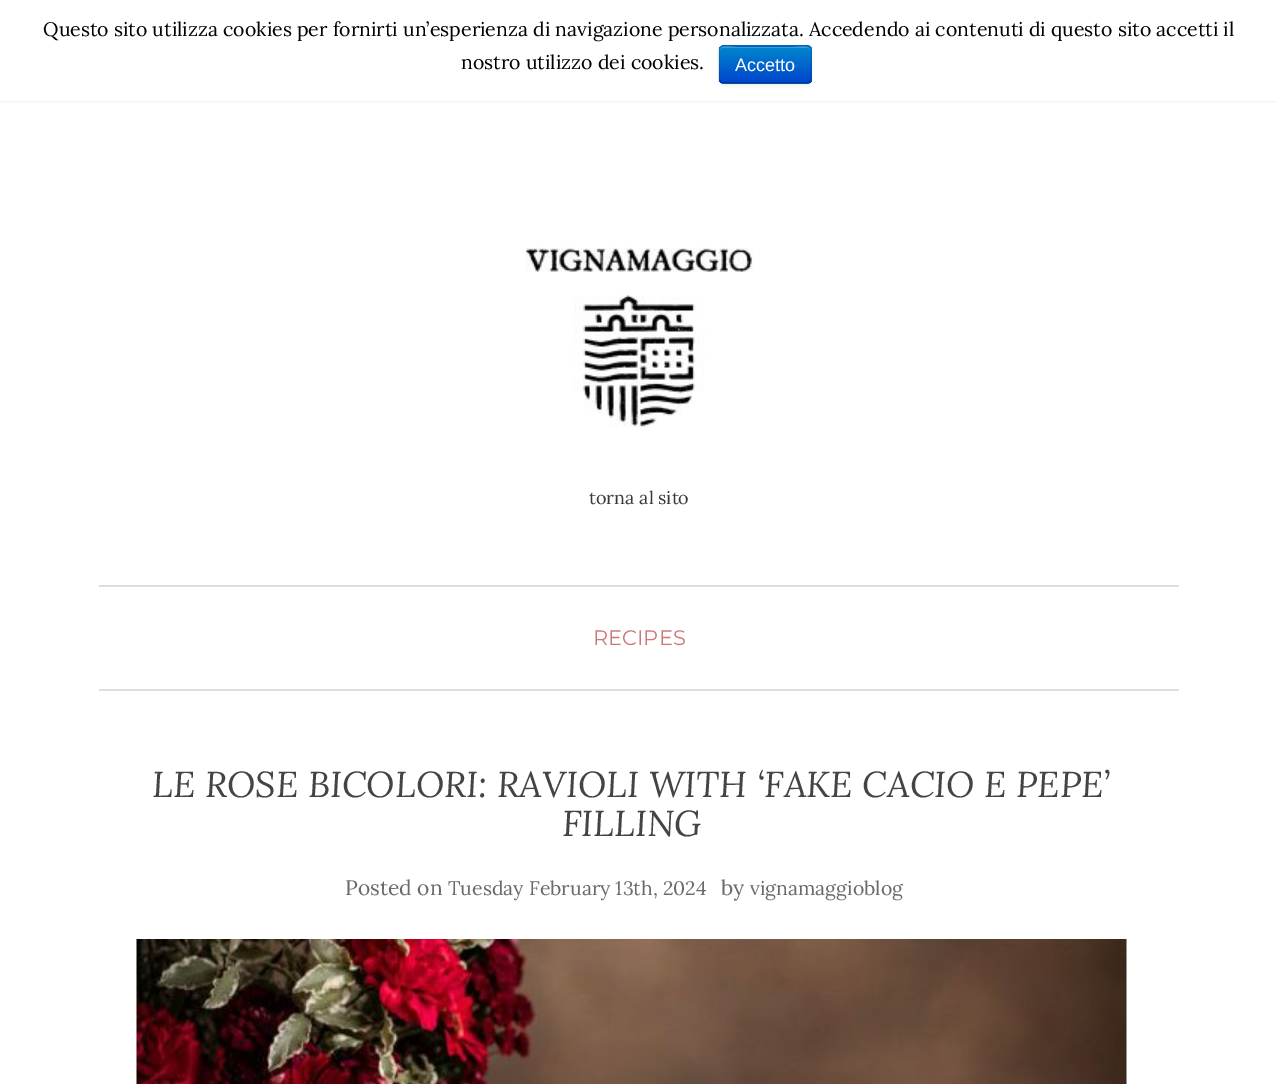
%!PS-Adobe-3.0
%%BoundingBox: 0 0 1277 1084
%%LanguageLevel: 3
%%Pages: 1
%%EndComments
%%BeginProlog
/setink { 3 { 255 div 3 1 roll } repeat setrgbcolor } def
/usefont { [ exch dup neg 0 0 3 -1 roll 0 0 ] selectfont } def
/drawtext { setink usefont moveto show } def
/fillbox { setink rectfill } def
/setalpha { dup .setfillconstantalpha .setstrokeconstantalpha } def
/rrect { 5 dict begin { /r /h /w /y /x } { exch def } forall
  x r add y moveto x w add y 2 copy h add r arct x w add y h add x 1 index r arct
  x y h add x y r arct x y 2 copy exch w add exch r arct closepath end } def
/softshadow { 12 dict begin { /a /b /q /h /w /y /x } { exch def } forall gsave /was 0 def
  9 -2 -9 { dup b mul 4 div /e exch def 1 sub .425 mul 2.718 exch exp 1 add a .99 .min exch div /now exch def
    1 1 now sub 1 was sub div sub setalpha /was now def
    w h .min e 2 mul add 0 gt { x e sub y e sub w e 2 mul add h e 2 mul add
      q e add b .6 mul add w h .min 2 div e add .min 0 .max rrect fill } if } for grestore end } def
/drawimage { 5 dict begin { /h /w /y /x /name } { exch def } forall
  gsave x y translate w h scale
  w h 8 [w 0 0 h 0 0] name (r) file false 3 colorimage grestore end } def
%%EndProlog
%%BeginSetup
<< /PageSize [1277 1084] /PageUsesTransparency true >> setpagedevice
%%EndSetup
%%Page: 1 1
0 .pushpdf14devicefilter
0 1084 translate 1 -1 scale
4 setmiterlimit
0 0 1277 1084 255 255 255 fillbox
227 227 227 setink
0 0 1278 101 0 1.5 1 softshadow
0 0 1277 101 255 255 255 fillbox
(Questo sito utilizza cookies per fornirti un’esperienza di navigazione personalizzata. Accedendo ai contenuti di questo sito accetti il) 43 36 /Lora-Regular 19.5 0 0 0 drawtext
(nostro utilizzo dei cookies.) 461 69 /Lora-Regular 19.5 0 0 0 drawtext
719 47 93 39 5 1.5 0.05 softshadow
0 109 204 setink
719 45 93 39 5 rrect fill
gsave
719 45 93 39 5 rrect clip newpath
gsave 719 47 moveto 812 47 lineto 812 83 lineto 719 83 lineto closepath clip newpath
<< /ShadingType 2 /ColorSpace /DeviceRGB /Coords [765 46 765 83] /Extend [true true] /Function << /FunctionType 2 /Domain [0 1] /C0 [0 0.533 0.8] /C1 [0 0.267 0.8] /N 1 >> >> shfill grestore
grestore
0.2 setalpha
255 255 255 setink
723 48 moveto 807 48 lineto 809 48 810 49 810 51 curveto 810 43 797 47 793 47 curveto 737 47 lineto 733 47 720 43 720 51 curveto 720 49 721 48 723 48 curveto closepath fill
0.25 setalpha
0 0 0 setink
1.5 setlinewidth
809.5 82 moveto 807.5 83 lineto 722.5 83 lineto 720.5 82 lineto stroke
0.1 setalpha
720.5 82 moveto 718.5 80.5 719 76.5 719 74.5 curveto 719 64.5 lineto 719 43 715.5 46 737 46 curveto 793 46 lineto 814.5 46 811 43 811 64.5 curveto 811 74.5 lineto 811 76.5 811.5 80.5 809.5 82 curveto stroke
1 setalpha
(Accetto) 735 71 /LiberationSans-Regular 18 255 255 255 drawtext
(assets/img1.rgb) 525 247 228 181 drawimage
(torna al sito) 589 504 /Lora-Regular 18 57 57 57 drawtext
99 585 1080 2 221 221 221 fillbox
99 689 1080 2 222 222 222 fillbox
(RECIPES) 593 645 /Montserrat-Regular 21 207 118 118 drawtext
(LE ROSE BICOLORI: RAVIOLI WITH ‘FAKE CACIO E PEPE’) 152 797 /Lora-Italic 36 68 68 68 drawtext
(FILLING) 562 836 /Lora-Italic 36 68 68 68 drawtext
(Posted on) 345 895 /Lora-Regular 21 105 105 105 drawtext
(Tuesday February 13th, 2024) 448 895 /Lora-Regular 19.5 105 105 105 drawtext
(by) 721 895 /Lora-Regular 21 105 105 105 drawtext
(vignamaggioblog) 750 895 /Lora-Regular 19.5 105 105 105 drawtext
(assets/img2.rgb) 136 939 991 145 drawimage
.poppdf14devicefilter showpage
%%EOF
